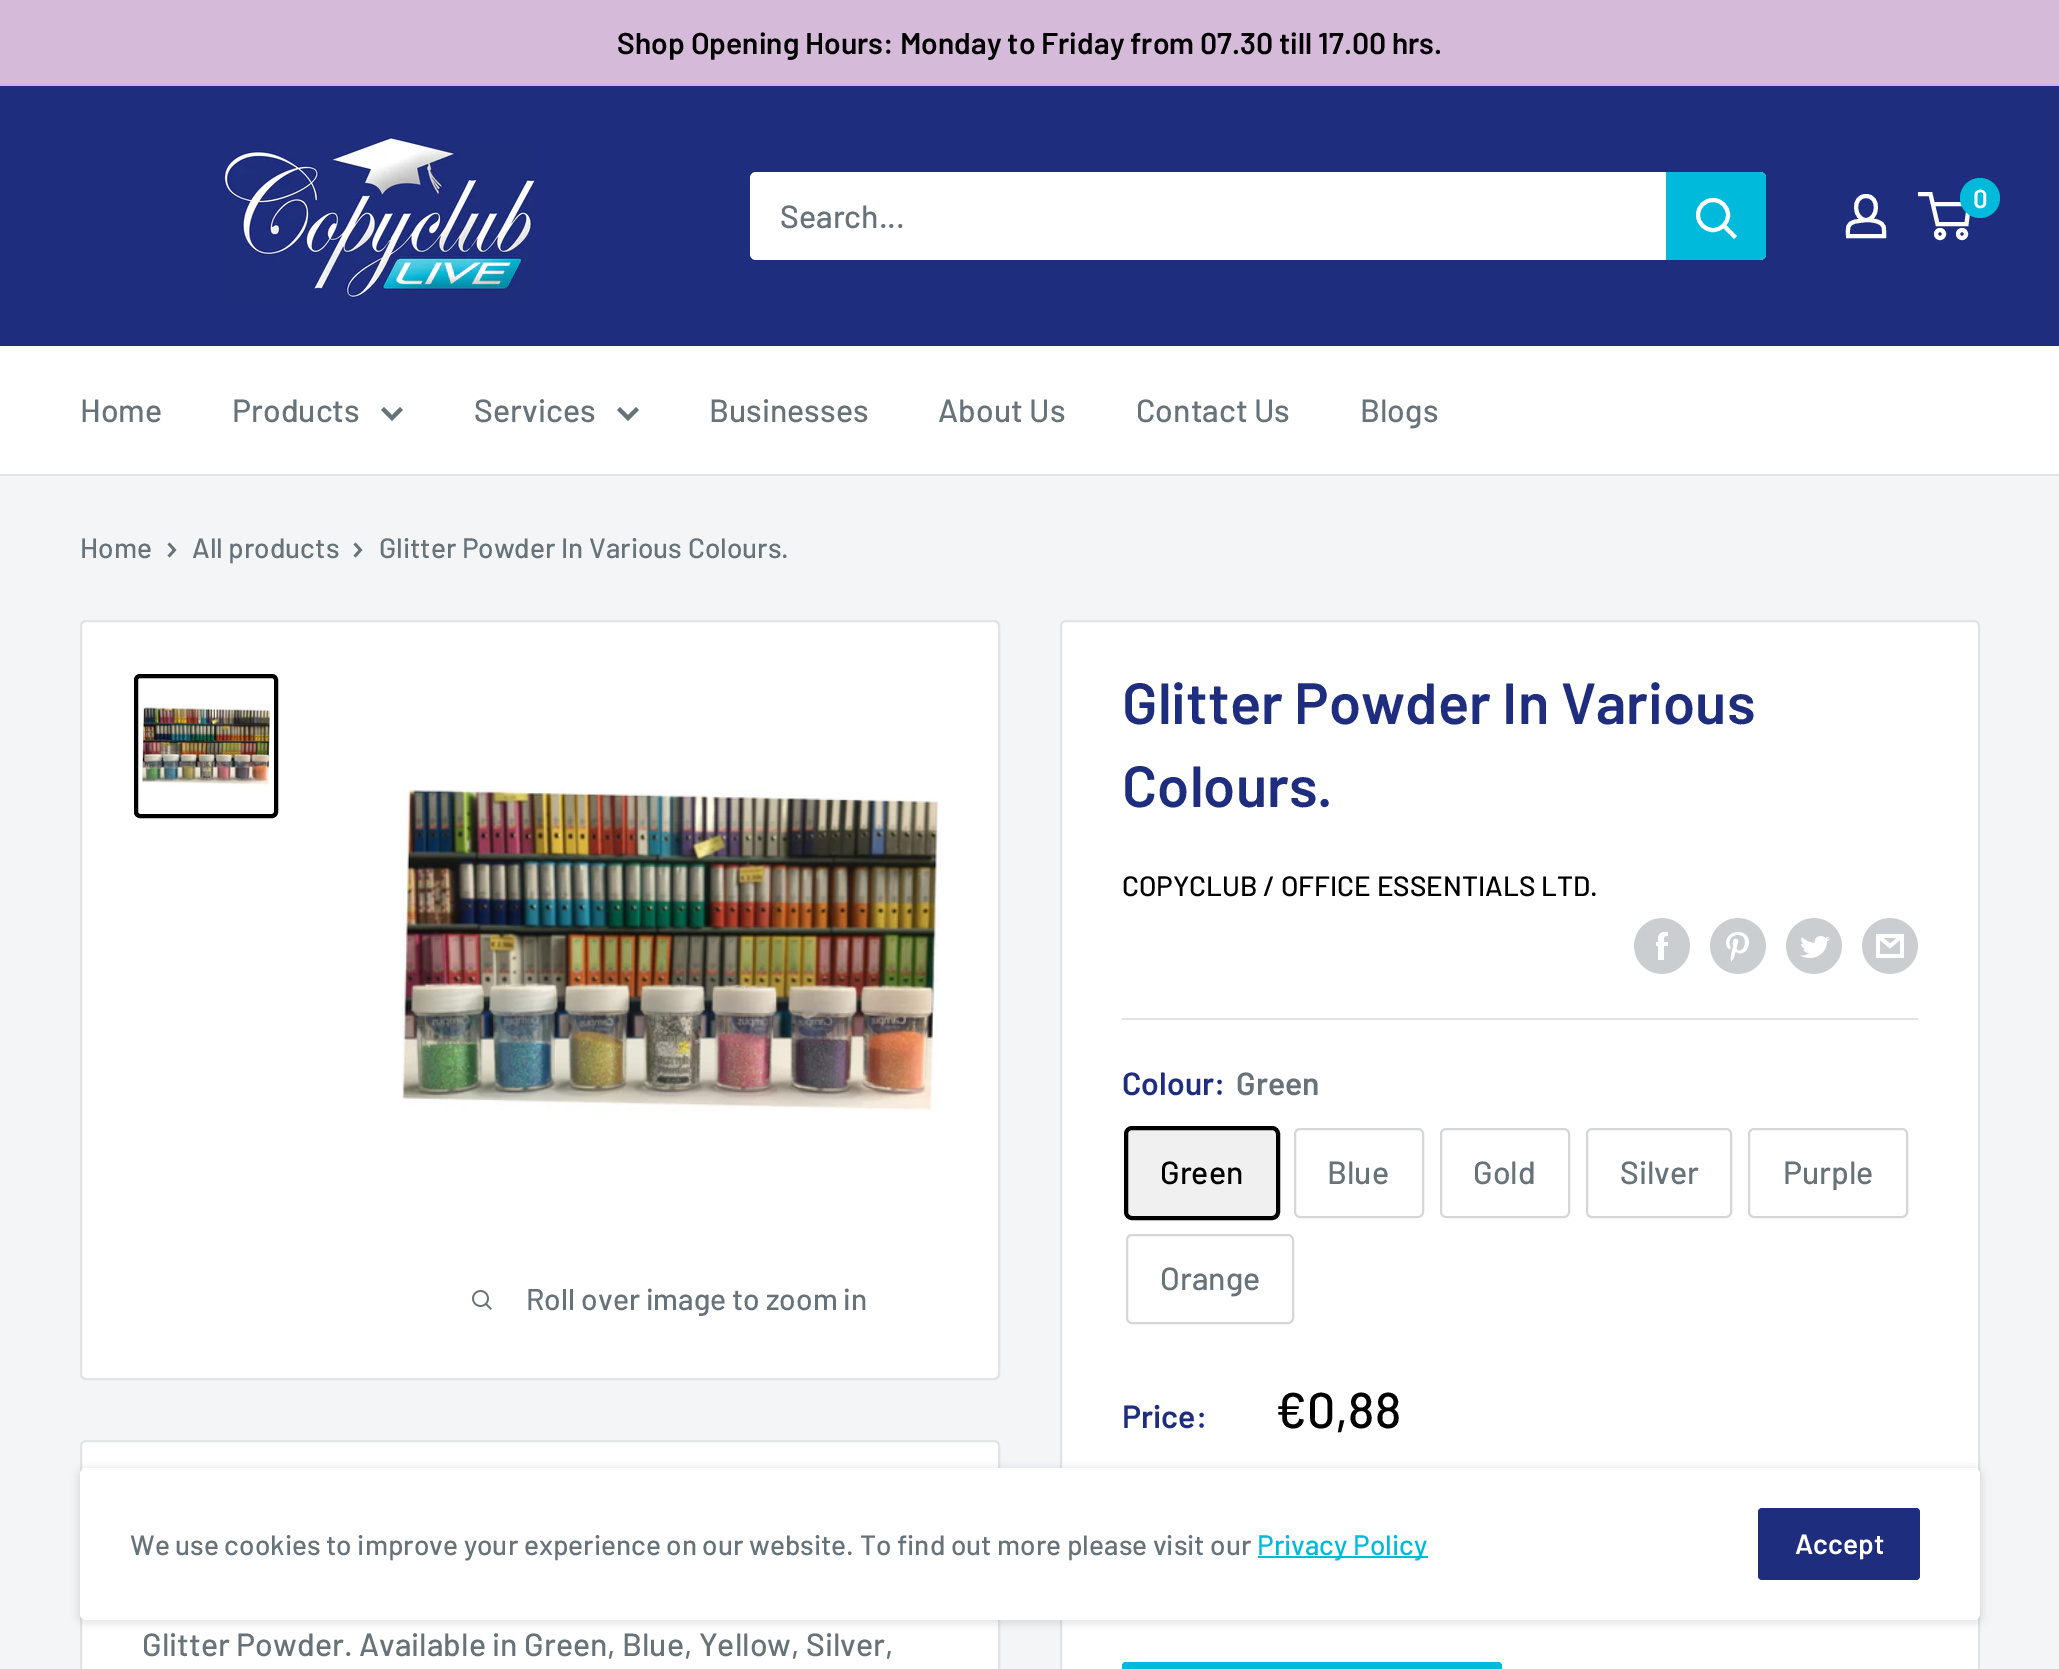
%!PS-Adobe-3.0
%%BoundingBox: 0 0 2059 1669
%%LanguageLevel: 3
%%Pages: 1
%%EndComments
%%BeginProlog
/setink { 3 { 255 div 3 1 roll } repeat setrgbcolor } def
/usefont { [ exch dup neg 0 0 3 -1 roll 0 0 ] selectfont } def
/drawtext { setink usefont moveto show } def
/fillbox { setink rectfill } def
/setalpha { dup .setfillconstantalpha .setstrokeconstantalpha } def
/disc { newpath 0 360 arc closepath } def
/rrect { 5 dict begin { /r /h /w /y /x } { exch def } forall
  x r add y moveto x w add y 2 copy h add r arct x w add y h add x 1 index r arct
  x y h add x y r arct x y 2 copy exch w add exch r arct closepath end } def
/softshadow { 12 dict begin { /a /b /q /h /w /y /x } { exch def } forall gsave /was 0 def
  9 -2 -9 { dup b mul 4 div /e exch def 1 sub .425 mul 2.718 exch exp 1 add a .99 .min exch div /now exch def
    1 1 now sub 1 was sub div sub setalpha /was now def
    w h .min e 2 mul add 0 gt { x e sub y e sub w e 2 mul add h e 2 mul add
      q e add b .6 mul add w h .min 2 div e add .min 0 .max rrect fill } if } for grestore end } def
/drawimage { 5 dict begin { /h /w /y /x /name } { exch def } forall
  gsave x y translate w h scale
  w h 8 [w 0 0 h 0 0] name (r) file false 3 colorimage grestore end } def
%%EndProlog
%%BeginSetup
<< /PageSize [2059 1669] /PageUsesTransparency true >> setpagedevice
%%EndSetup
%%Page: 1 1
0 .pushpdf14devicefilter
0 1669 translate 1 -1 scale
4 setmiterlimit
0 0 2059 1669 243 245 246 fillbox
0 0 2059 84 214 186 217 fillbox
0 84 2059 2 199 183 224 fillbox
(Shop Opening Hours: Monday to Friday from 07.30 till 17.00 hrs.) 617 54 /Barlow-SemiBold 30 0 0 0 drawtext
0 86 2059 260 30 45 125 fillbox
(assets/img1.rgb) 222 136 314 166 drawimage
255 255 255 setink
4 setlinewidth
1866 220 moveto 1870 220 1873.5 220.5 1877 221.5 curveto 1885.5 224 1884 228.5 1884 236 curveto 1848 236 lineto 1848 228 1846.5 223.5 1855.5 221.5 curveto closepath 1866 220 moveto 1854 220 1851.5 196 1866 196 curveto 1880.5 196 1878 220 1866 220 curveto closepath stroke
1940 234 4 disc stroke
1962 234 4 disc stroke
1932.5 204 moveto 1969 204 lineto 1966.5 224 lineto 1937.5 224 lineto 1930.5 194 lineto 1918 194 lineto stroke
0 186 219 setink
1980 198 20 disc fill
(0) 1973 208 /Barlow-SemiBold 26 255 255 255 drawtext
750 172 1016 88 6 rrect fill
(Search...) 780 228 /Barlow-Medium 32 103 114 121 drawtext
0 186 219 setink
1666 172 moveto 1760 172 lineto 1763.5 172 1766 174.5 1766 178 curveto 1766 254 lineto 1766 257.5 1763.5 260 1760 260 curveto 1666 260 lineto closepath fill
255 255 255 setink
2 setlinecap
1734 236 moveto 1724 226 lineto stroke
0 setlinecap
1713 215 15 disc stroke
0 346 2059 128 255 255 255 fillbox
0 474 2059 2 225 227 228 fillbox
(Home) 80 422 /Barlow-Medium 32 103 114 121 drawtext
(Products) 232 422 /Barlow-Medium 32 103 114 121 drawtext
2 setlinecap
400 410 moveto 392 418 lineto 384 410 lineto stroke
(Services) 474 422 /Barlow-Medium 32 103 114 121 drawtext
636 410 moveto 628 418 lineto 620 410 lineto stroke
(Businesses) 709 422 /Barlow-Medium 32 103 114 121 drawtext
(About Us) 938 422 /Barlow-Medium 32 103 114 121 drawtext
(Contact Us) 1136 422 /Barlow-Medium 32 103 114 121 drawtext
(Blogs) 1360 422 /Barlow-Medium 32 103 114 121 drawtext
(Home) 80 558 /Barlow-Medium 28 103 114 121 drawtext
2.7 setlinewidth
169.5 544.5 moveto 174.5 550 lineto 169.5 555.5 lineto stroke
(All products) 192 558 /Barlow-Medium 28 103 114 121 drawtext
355.5 544.5 moveto 360.5 550 lineto 355.5 555.5 lineto stroke
(Glitter Powder In Various Colours.) 379 558 /Barlow-Medium 28 103 114 121 drawtext
255 255 255 setink
81 621 918 758 5 rrect gsave fill grestore
225 227 228 setink
2 setlinewidth
0 setlinecap
stroke
0 0 0 setink
4 setlinewidth
136 676 140 140 4 rrect stroke
(assets/img2.rgb) 142 706 128 79 drawimage
(assets/img3.rgb) 402 789 536 322 drawimage
(assets/img4.rgb) 472 1290 20 20 drawimage
(Roll over image to zoom in) 526 1310 /Barlow-Medium 30 103 114 121 drawtext
255 255 255 setink
1061 621 918 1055 5 rrect gsave fill grestore
225 227 228 setink
2 setlinewidth
stroke
(Glitter Powder In Various) 1122 724 /Barlow-SemiBold 58 30 45 125 drawtext
(Colours.) 1122 807 /Barlow-SemiBold 58 30 45 125 drawtext
(COPYCLUB / OFFICE ESSENTIALS LTD.) 1122 896 /Barlow-Medium 28 0 0 0 drawtext
(assets/img5.rgb) 1634 918 56 56 drawimage
(assets/img6.rgb) 1710 918 56 56 drawimage
(assets/img7.rgb) 1786 918 56 56 drawimage
(assets/img8.rgb) 1862 918 56 56 drawimage
1122 1018 796 2 225 227 228 fillbox
(Colour:) 1122 1095 /Barlow-SemiBold 32 30 45 125 drawtext
(Green) 1236 1095 /Barlow-SemiBold 32 103 114 121 drawtext
0 0 0 setink
1125 1127 154 92 7 rrect stroke
0.06 setalpha
1126 1128 152 90 0 0 0 fillbox
1 setalpha
1127 1129 150 88 5 rrect stroke
(Green) 1160 1184 /Barlow-Medium 32 0 0 0 drawtext
212 214 216 setink
1295 1129 128 88 5 rrect stroke
(Blue) 1327 1184 /Barlow-Medium 32 103 114 121 drawtext
212 214 216 setink
1441 1129 128 88 5 rrect stroke
(Gold) 1473 1184 /Barlow-Medium 32 103 114 121 drawtext
212 214 216 setink
1587 1129 144 88 5 rrect stroke
(Silver) 1620 1184 /Barlow-Medium 32 103 114 121 drawtext
212 214 216 setink
1749 1129 158 88 5 rrect stroke
(Purple) 1783 1184 /Barlow-Medium 32 103 114 121 drawtext
212 214 216 setink
1127 1235 166 88 5 rrect stroke
(Orange) 1160 1290 /Barlow-Medium 32 103 114 121 drawtext
(Price:) 1122 1428 /Barlow-SemiBold 32 30 45 125 drawtext
(€0,88) 1275 1428 /Barlow-Medium 50 0 0 0 drawtext
0 186 219 setink
1122 1662 380 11 4 rrect fill
255 255 255 setink
81 1441 918 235 5 rrect gsave fill grestore
225 227 228 setink
stroke
(Glitter Powder. Available in Green, Blue, Yellow, Silver,) 142 1656 /Barlow-Medium 32 103 114 121 drawtext
0 0 0 setink
78 1468 1904 156 8 4 0.1 softshadow
255 255 255 setink
80 1468 1900 152 6 rrect fill
(We use cookies to improve your experience on our website. To find out more please visit our) 130 1555 /Barlow-Medium 28 103 114 121 drawtext
1258 1556 170 2 0 186 219 fillbox
(Privacy Policy) 1257 1555 /Barlow-Medium 28 0 186 219 drawtext
30 45 125 setink
1758 1508 162 72 4 rrect fill
(Accept) 1795 1554 /Barlow-SemiBold 28 255 255 255 drawtext
.poppdf14devicefilter showpage
%%EOF
